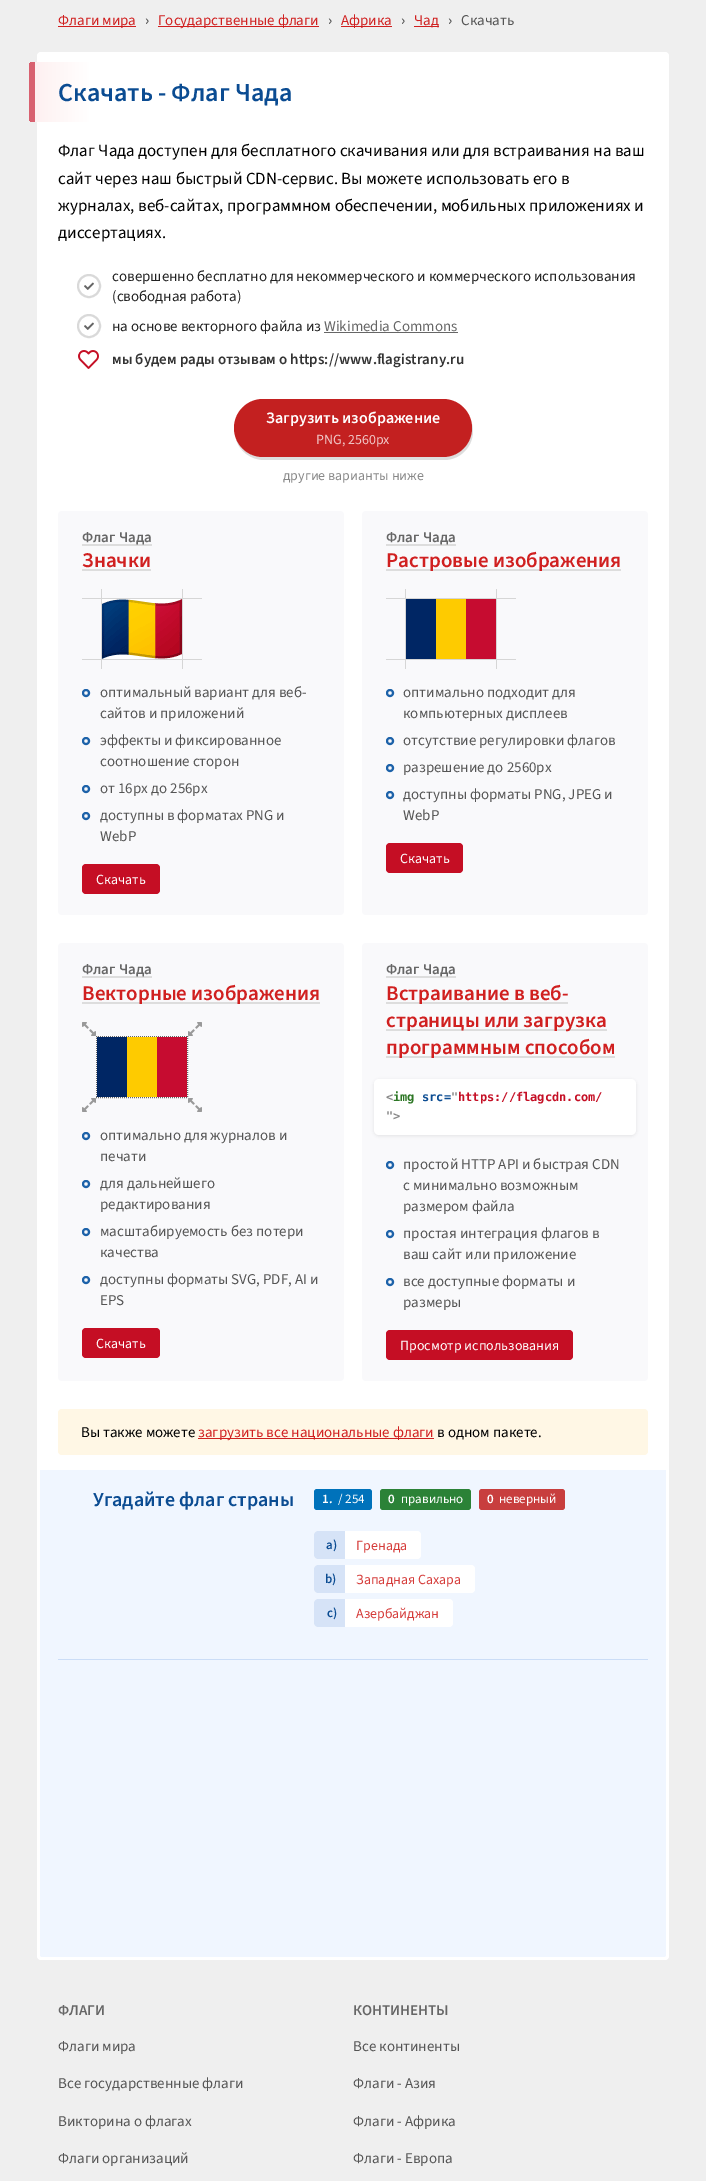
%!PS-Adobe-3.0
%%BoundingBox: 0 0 706 2181
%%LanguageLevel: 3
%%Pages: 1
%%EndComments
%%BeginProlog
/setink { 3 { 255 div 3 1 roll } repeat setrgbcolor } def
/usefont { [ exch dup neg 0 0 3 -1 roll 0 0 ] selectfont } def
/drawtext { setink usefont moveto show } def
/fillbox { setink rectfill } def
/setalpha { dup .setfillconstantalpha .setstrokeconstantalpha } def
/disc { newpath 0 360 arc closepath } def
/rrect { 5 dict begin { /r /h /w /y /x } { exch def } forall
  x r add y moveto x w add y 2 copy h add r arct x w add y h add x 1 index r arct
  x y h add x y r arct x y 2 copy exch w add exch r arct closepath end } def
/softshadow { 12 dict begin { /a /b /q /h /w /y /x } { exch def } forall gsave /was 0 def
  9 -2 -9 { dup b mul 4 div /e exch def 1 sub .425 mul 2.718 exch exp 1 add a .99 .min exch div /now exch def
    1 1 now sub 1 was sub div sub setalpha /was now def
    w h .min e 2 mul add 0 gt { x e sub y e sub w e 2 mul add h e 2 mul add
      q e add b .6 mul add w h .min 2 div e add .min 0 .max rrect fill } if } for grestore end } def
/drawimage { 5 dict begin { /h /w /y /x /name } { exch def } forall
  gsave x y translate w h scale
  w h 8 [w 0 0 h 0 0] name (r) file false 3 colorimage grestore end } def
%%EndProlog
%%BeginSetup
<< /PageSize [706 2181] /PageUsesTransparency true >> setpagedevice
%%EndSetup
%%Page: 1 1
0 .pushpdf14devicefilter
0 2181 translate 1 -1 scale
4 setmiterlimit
0 0 706 2181 239 239 239 fillbox
58 26 78 1 208 32 32 fillbox
(Флаги мира) 58 25 /SourceSans3-Regular 15 208 32 32 drawtext
(›) 145 25 /SourceSans3-SemiBold 15 85 85 85 drawtext
158 26 161 1 208 32 32 fillbox
(Государственные флаги) 158 25 /SourceSans3-Regular 15 208 32 32 drawtext
(›) 328 25 /SourceSans3-SemiBold 15 85 85 85 drawtext
341 26 51 1 208 32 32 fillbox
(Африка) 341 25 /SourceSans3-Regular 15 208 32 32 drawtext
(›) 401 25 /SourceSans3-SemiBold 15 85 85 85 drawtext
414 26 25 1 208 32 32 fillbox
(Чад) 414 25 /SourceSans3-Regular 15 208 32 32 drawtext
(›) 448 25 /SourceSans3-SemiBold 15 85 85 85 drawtext
(Скачать) 461 25 /SourceSans3-Regular 15 85 85 85 drawtext
255 255 255 setink
37 52 632 1908 4 rrect fill
gsave 33 62 moveto 648 62 lineto 648 122 lineto 33 122 lineto 31 122 29 120 29 118 curveto 29 66 lineto 29 64 31 62 33 62 curveto closepath clip newpath
<< /ShadingType 2 /ColorSpace /DeviceRGB /Coords [29 92 648 92] /Extend [true true] /Function << /FunctionType 3 /Domain [0 1] /Functions [<< /FunctionType 2 /Domain [0 1] /C0 [0.847 0.38 0.439] /C1 [0.847 0.38 0.439] /N 1 >> << /FunctionType 2 /Domain [0 1] /C0 [0.996 0.941 0.945] /C1 [1 1 1] /N 1 >> << /FunctionType 2 /Domain [0 1] /C0 [1 1 1] /C1 [1 1 1] /N 1 >>] /Bounds [0.01 0.1] /Encode [0 1 0 1 0 1] >> >> shfill grestore
(Скачать - Флаг Чада) 58 101 /SourceSans3-SemiBold 26 11 76 146 drawtext
(Флаг Чада доступен для бесплатного скачивания или для встраивания на ваш) 58 156 /SourceSans3-Regular 17 0 0 0 drawtext
(сайт через наш быстрый CDN-сервис. Вы можете использовать его в) 58 184 /SourceSans3-Regular 17 0 0 0 drawtext
(журналах, веб-сайтах, программном обеспечении, мобильных приложениях и) 58 211 /SourceSans3-Regular 17 0 0 0 drawtext
(диссертациях.) 58 238 /SourceSans3-Regular 17 0 0 0 drawtext
(assets/img1.rgb) 84 282 10 8 drawimage
217 217 217 setink
2 setlinewidth
89 286 11 disc stroke
(совершенно бесплатно для некоммерческого и коммерческого использования) 112 281 /SourceSans3-Regular 15 34 34 34 drawtext
(\(свободная работа\)) 112 301 /SourceSans3-Regular 15 34 34 34 drawtext
(assets/img1.rgb) 84 322 10 8 drawimage
217 217 217 setink
89 326 11 disc stroke
(на основе векторного файла из) 112 331 /SourceSans3-Regular 15 34 34 34 drawtext
(Wikimedia Commons) 324 331 /SourceSans3-Regular 15 102 102 102 drawtext
324 332 134 1 102 102 102 fillbox
(assets/img2.rgb) 78 350 21 19 drawimage
(мы будем рады отзывам о https://www.flagistrany.ru) 112 364 /SourceSans3-SemiBold 15 51 51 51 drawtext
221 221 221 setink
236 439 moveto 239 451 251 460 264 460 curveto 444 460 lineto 460 460 473 447 473 431 curveto 473 427 472 424 471 420 curveto 472 423 472 425 472 428 curveto 472 444 459 457 443 457 curveto 263 457 lineto 251 457 240 449 236 439 curveto closepath fill
195 32 32 setink
234 399 238 58 29 rrect fill
(Загрузить изображение) 266 423 /SourceSans3-SemiBold 16 255 255 255 drawtext
(PNG, 2560px) 316 444 /SourceSans3-Regular 14 240 199 199 drawtext
(другие варианты ниже) 283 480 /SourceSans3-Regular 14 136 136 136 drawtext
249 249 251 setink
58 511 286 404 4 rrect fill
82 544 70 2 221 221 221 fillbox
(Флаг Чада) 82 542 /SourceSans3-SemiBold 15 102 102 102 drawtext
(Значки) 82 567 /SourceSans3-SemiBold 21 208 32 32 drawtext
82 569 69 2 221 221 221 fillbox
101 589 1 80 214 214 214 fillbox
82 598 120 1 214 214 214 fillbox
82 659 120 1 214 214 214 fillbox
182 589 1 80 214 214 214 fillbox
102 599 80 60 255 255 255 fillbox
(assets/img3.rgb) 102 599 80 60 drawimage
29 98 169 setink
86 693 3 disc stroke
(оптимальный вариант для веб-) 100 697 /SourceSans3-Regular 15 85 85 85 drawtext
(сайтов и приложений) 100 718 /SourceSans3-Regular 15 85 85 85 drawtext
29 98 169 setink
86 741 3 disc stroke
(эффекты и фиксированное) 100 745 /SourceSans3-Regular 15 85 85 85 drawtext
(соотношение сторон) 100 766 /SourceSans3-Regular 15 85 85 85 drawtext
29 98 169 setink
86 789 3 disc stroke
(от 16px до 256px) 100 793 /SourceSans3-Regular 15 85 85 85 drawtext
29 98 169 setink
86 816 3 disc stroke
(доступны в форматах PNG и) 100 820 /SourceSans3-Regular 15 85 85 85 drawtext
(WebP) 100 841 /SourceSans3-Regular 15 85 85 85 drawtext
197 14 36 setink
82 864 78 30 4 rrect fill
(Скачать) 96 884 /SourceSans3-Regular 14 255 255 255 drawtext
249 249 251 setink
362 511 286 404 4 rrect fill
386 544 70 2 221 221 221 fillbox
(Флаг Чада) 386 542 /SourceSans3-SemiBold 15 102 102 102 drawtext
386 569 235 2 221 221 221 fillbox
(Растровые изображения) 386 567 /SourceSans3-SemiBold 21 208 32 32 drawtext
405 589 1 80 214 214 214 fillbox
386 598 130 1 214 214 214 fillbox
386 659 130 1 214 214 214 fillbox
496 589 1 80 214 214 214 fillbox
(assets/img4.rgb) 406 599 90 60 drawimage
29 98 169 setink
390 693 3 disc stroke
(оптимально подходит для) 403 697 /SourceSans3-Regular 15 85 85 85 drawtext
(компьютерных дисплеев) 403 718 /SourceSans3-Regular 15 85 85 85 drawtext
29 98 169 setink
390 741 3 disc stroke
(отсутствие регулировки флагов) 403 745 /SourceSans3-Regular 15 85 85 85 drawtext
29 98 169 setink
390 768 3 disc stroke
(разрешение до 2560px) 403 772 /SourceSans3-Regular 15 85 85 85 drawtext
29 98 169 setink
390 795 3 disc stroke
(доступны форматы PNG, JPEG и) 403 799 /SourceSans3-Regular 15 85 85 85 drawtext
(WebP) 403 820 /SourceSans3-Regular 15 85 85 85 drawtext
197 14 36 setink
386 843 77 30 4 rrect fill
(Скачать) 400 863 /SourceSans3-Regular 14 255 255 255 drawtext
249 249 251 setink
58 943 286 438 4 rrect fill
82 976 70 2 221 221 221 fillbox
(Флаг Чада) 82 974 /SourceSans3-SemiBold 15 102 102 102 drawtext
82 1002 238 2 221 221 221 fillbox
(Векторные изображения) 82 1000 /SourceSans3-SemiBold 21 208 32 32 drawtext
(assets/img5.rgb) 82 1022 14 14 drawimage
(assets/img6.rgb) 188 1022 14 14 drawimage
102 102 102 setink
1 setlinewidth
[1 1] 0 setdash
96 1036.5 moveto 188 1036.5 lineto stroke
96.5 1036 moveto 96.5 1098 lineto stroke
(assets/img4.rgb) 97 1037 90 60 drawimage
187.5 1036 moveto 187.5 1098 lineto stroke
96 1097.5 moveto 188 1097.5 lineto stroke
(assets/img6.rgb) 82 1098 14 14 drawimage
(assets/img5.rgb) 188 1098 14 14 drawimage
29 98 169 setink
2 setlinewidth
[] 0 setdash
86 1136 3 disc stroke
(оптимально для журналов и) 100 1140 /SourceSans3-Regular 15 85 85 85 drawtext
(печати) 100 1161 /SourceSans3-Regular 15 85 85 85 drawtext
29 98 169 setink
86 1184 3 disc stroke
(для дальнейшего) 100 1188 /SourceSans3-Regular 15 85 85 85 drawtext
(редактирования) 100 1209 /SourceSans3-Regular 15 85 85 85 drawtext
29 98 169 setink
86 1232 3 disc stroke
(масштабируемость без потери) 100 1236 /SourceSans3-Regular 15 85 85 85 drawtext
(качества) 100 1257 /SourceSans3-Regular 15 85 85 85 drawtext
29 98 169 setink
86 1280 3 disc stroke
(доступны форматы SVG, PDF, AI и) 100 1284 /SourceSans3-Regular 15 85 85 85 drawtext
(EPS) 100 1305 /SourceSans3-Regular 15 85 85 85 drawtext
197 14 36 setink
82 1328 78 30 4 rrect fill
(Скачать) 96 1348 /SourceSans3-Regular 14 255 255 255 drawtext
249 249 251 setink
362 943 286 438 4 rrect fill
386 976 70 2 221 221 221 fillbox
(Флаг Чада) 386 974 /SourceSans3-SemiBold 15 102 102 102 drawtext
386 1002 182 2 221 221 221 fillbox
(Встраивание в веб-) 386 1000 /SourceSans3-SemiBold 21 208 32 32 drawtext
386 1029 221 2 221 221 221 fillbox
(страницы или загрузка) 386 1027 /SourceSans3-SemiBold 21 208 32 32 drawtext
386 1056 229 2 221 221 221 fillbox
(программным способом) 386 1054 /SourceSans3-SemiBold 21 208 32 32 drawtext
50 50 50 setink
374 1080 262 56 5 1.5 0.1 softshadow
255 255 255 setink
374 1079 262 56 5 rrect fill
(<) 386 1101 /DejaVuSansMono-Bold 12 136 136 136 drawtext
(img) 393 1101 /DejaVuSansMono-Bold 12 45 119 37 drawtext
(src=) 422 1101 /DejaVuSansMono-Bold 12 11 76 146 drawtext
(") 451 1101 /DejaVuSansMono-Bold 12 136 136 136 drawtext
(https://flagcdn.com/) 458 1101 /DejaVuSansMono-Bold 12 197 15 37 drawtext
(">) 386 1120 /DejaVuSansMono-Bold 12 136 136 136 drawtext
29 98 169 setink
390 1165 3 disc stroke
(простой HTTP API и быстрая CDN) 403 1169 /SourceSans3-Regular 15 85 85 85 drawtext
(с минимально возможным) 403 1190 /SourceSans3-Regular 15 85 85 85 drawtext
(размером файла) 403 1211 /SourceSans3-Regular 15 85 85 85 drawtext
29 98 169 setink
390 1234 3 disc stroke
(простая интеграция флагов в) 403 1238 /SourceSans3-Regular 15 85 85 85 drawtext
(ваш сайт или приложение) 403 1259 /SourceSans3-Regular 15 85 85 85 drawtext
29 98 169 setink
390 1282 3 disc stroke
(все доступные форматы и) 403 1286 /SourceSans3-Regular 15 85 85 85 drawtext
(размеры) 403 1307 /SourceSans3-Regular 15 85 85 85 drawtext
197 14 36 setink
386 1330 187 30 4 rrect fill
(Просмотр использования) 400 1350 /SourceSans3-Regular 14 255 255 255 drawtext
255 247 229 setink
58 1409 590 46 4 rrect fill
(Вы также можете) 81 1437 /SourceSans3-Regular 15 0 0 0 drawtext
198 1438 236 1 208 32 32 fillbox
(загрузить все национальные флаги) 198 1437 /SourceSans3-Regular 15 208 32 32 drawtext
(в одном пакете.) 437 1437 /SourceSans3-Regular 15 0 0 0 drawtext
240 246 255 setink
40 1470 moveto 666 1470 lineto 666 1955 lineto 666 1956 665 1957 664 1957 curveto 42 1957 lineto 41 1957 40 1956 40 1955 curveto closepath fill
58 1659 590 1 203 221 247 fillbox
(Угадайте флаг страны) 93 1506 /SourceSans3-SemiBold 20 11 76 146 drawtext
0 114 187 setink
314 1489 58 21 3 rrect fill
(1.) 322 1503 /SourceSans3-SemiBold 13 255 255 255 drawtext
(/ 254) 338 1503 /SourceSans3-Regular 13 255 255 255 drawtext
43 130 55 setink
380 1489 91 21 3 rrect fill
(0) 388 1503 /SourceSans3-SemiBold 13 255 255 255 drawtext
(правильно) 401 1503 /SourceSans3-Regular 13 255 255 255 drawtext
200 62 62 setink
479 1489 86 21 3 rrect fill
(0) 487 1503 /SourceSans3-SemiBold 13 255 255 255 drawtext
(неверный) 499 1503 /SourceSans3-Regular 13 255 255 255 drawtext
314 1531 107 28 4 rrect fill
214 227 247 setink
318 1531 moveto 345 1531 lineto 345 1559 lineto 318 1559 lineto 316 1559 314 1557 314 1555 curveto 314 1535 lineto 314 1533 316 1531 318 1531 curveto closepath fill
(a\)) 326 1549 /SourceSans3-SemiBold 13 11 76 146 drawtext
(Гренада) 356 1550 /SourceSans3-Regular 14 213 59 57 drawtext
255 255 255 setink
314 1565 161 28 4 rrect fill
214 227 247 setink
318 1565 moveto 345 1565 lineto 345 1593 lineto 318 1593 lineto 316 1593 314 1591 314 1589 curveto 314 1569 lineto 314 1567 316 1565 318 1565 curveto closepath fill
(b\)) 325 1583 /SourceSans3-SemiBold 13 11 76 146 drawtext
(Западная Сахара) 356 1584 /SourceSans3-Regular 14 213 59 57 drawtext
255 255 255 setink
314 1599 139 28 4 rrect fill
214 227 247 setink
318 1599 moveto 345 1599 lineto 345 1627 lineto 318 1627 lineto 316 1627 314 1625 314 1623 curveto 314 1603 lineto 314 1601 316 1599 318 1599 curveto closepath fill
(c\)) 327 1617 /SourceSans3-SemiBold 13 11 76 146 drawtext
(Азербайджан) 356 1618 /SourceSans3-Regular 14 213 59 57 drawtext
(ФЛАГИ) 58 2015 /SourceSans3-SemiBold 15 102 102 102 drawtext
(Флаги мира) 58 2051 /SourceSans3-Regular 15 85 85 85 drawtext
(Все государственные флаги) 58 2088 /SourceSans3-Regular 15 85 85 85 drawtext
(Викторина о флагах) 58 2126 /SourceSans3-Regular 15 85 85 85 drawtext
(Флаги организаций) 58 2163 /SourceSans3-Regular 15 85 85 85 drawtext
(КОНТИНЕНТЫ) 353 2015 /SourceSans3-SemiBold 15 102 102 102 drawtext
(Все континенты) 353 2051 /SourceSans3-Regular 15 85 85 85 drawtext
(Флаги - Азия) 353 2088 /SourceSans3-Regular 15 85 85 85 drawtext
(Флаги - Африка) 353 2126 /SourceSans3-Regular 15 85 85 85 drawtext
(Флаги - Европа) 353 2163 /SourceSans3-Regular 15 85 85 85 drawtext
.poppdf14devicefilter showpage
%%EOF
